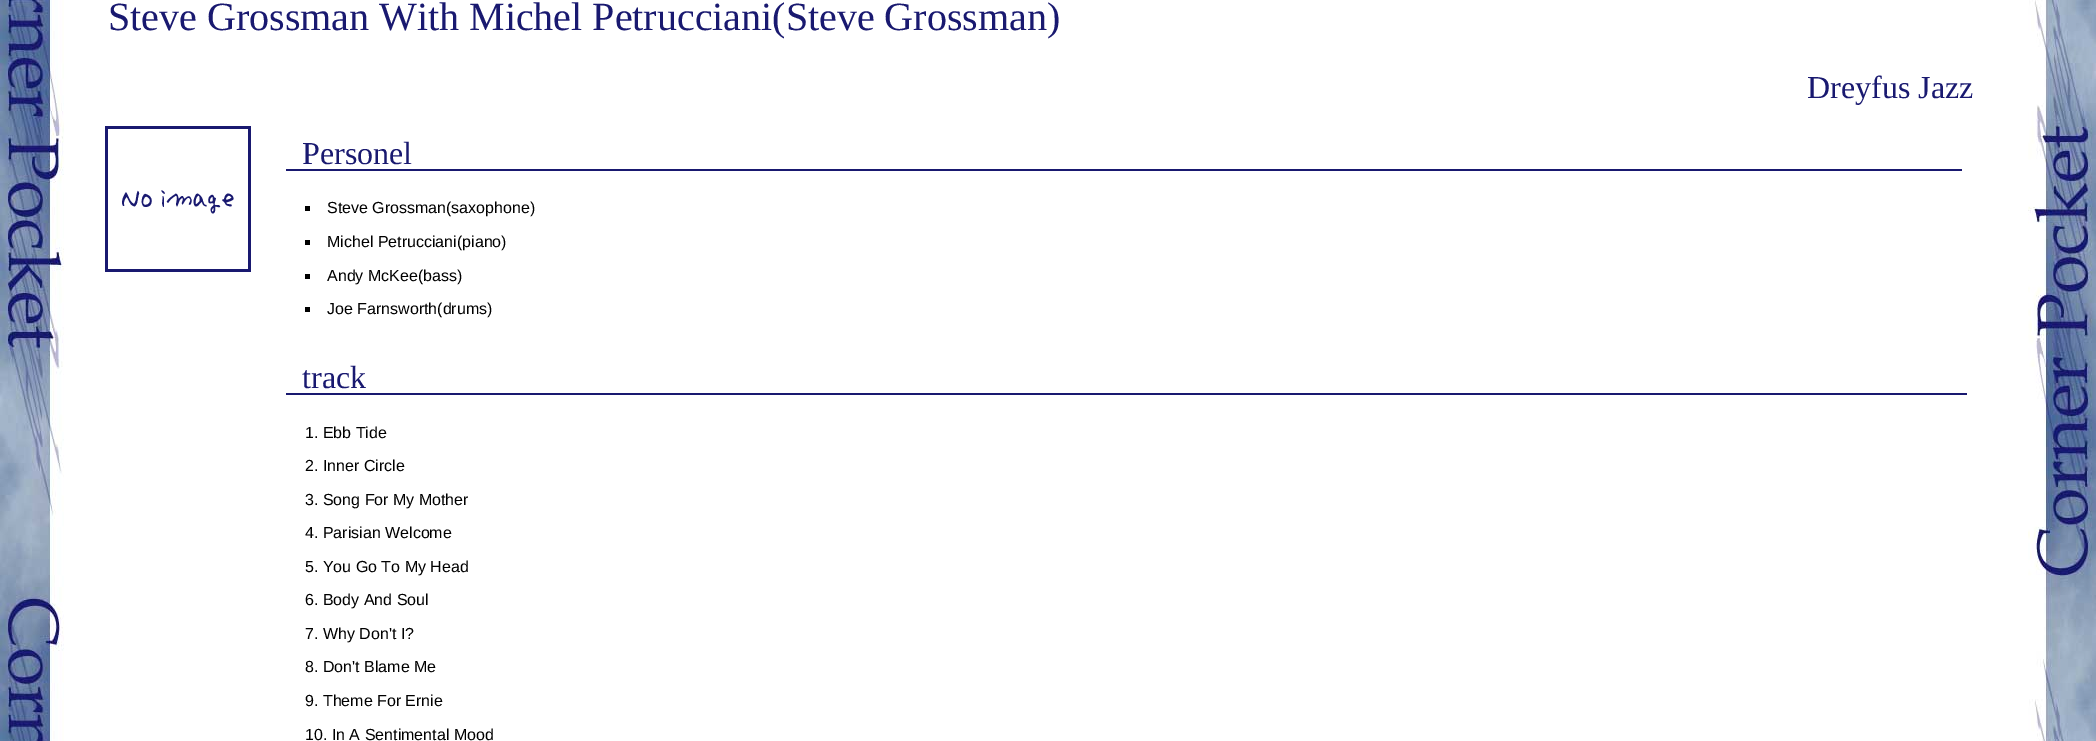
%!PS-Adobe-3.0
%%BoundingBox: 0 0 2096 741
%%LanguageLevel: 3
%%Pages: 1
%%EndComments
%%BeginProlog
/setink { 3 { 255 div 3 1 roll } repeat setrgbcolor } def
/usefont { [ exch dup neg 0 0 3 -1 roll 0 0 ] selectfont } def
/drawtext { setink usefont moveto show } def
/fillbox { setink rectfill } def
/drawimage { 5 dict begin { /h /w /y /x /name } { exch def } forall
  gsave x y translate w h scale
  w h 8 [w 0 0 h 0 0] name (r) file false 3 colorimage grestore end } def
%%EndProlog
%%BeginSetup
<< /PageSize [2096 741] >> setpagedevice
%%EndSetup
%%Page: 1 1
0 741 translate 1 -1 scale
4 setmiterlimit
0 0 2096 741 255 255 255 fillbox
(assets/img1.rgb) 0 0 64 741 drawimage
(assets/img2.rgb) 2028 0 68 741 drawimage
(Steve Grossman With Michel Petrucciani\(Steve Grossman\)) 108 30 /LiberationSerif-Regular 40 25 25 112 drawtext
(Dreyfus Jazz) 1807 98 /LiberationSerif-Regular 32 25 25 112 drawtext
(assets/img3.rgb) 105 126 146 146 drawimage
286 169 1676 2 25 25 112 fillbox
(Personel) 302 164 /LiberationSerif-Regular 32 25 25 112 drawtext
305 206 5 5 0 0 0 fillbox
(Steve Grossman\(saxophone\)) 327 213 /LiberationSans-Regular 16 0 0 0 drawtext
305 240 5 5 0 0 0 fillbox
(Michel Petrucciani\(piano\)) 327 247 /LiberationSans-Regular 16 0 0 0 drawtext
305 274 5 5 0 0 0 fillbox
(Andy McKee\(bass\)) 327 281 /LiberationSans-Regular 16 0 0 0 drawtext
305 307 5 5 0 0 0 fillbox
(Joe Farnsworth\(drums\)) 327 314 /LiberationSans-Regular 16 0 0 0 drawtext
286 393 1681 2 25 25 112 fillbox
(track) 302 388 /LiberationSerif-Regular 32 25 25 112 drawtext
(1. Ebb Tide) 305 438 /LiberationSans-Regular 16 0 0 0 drawtext
(2. Inner Circle) 305 471 /LiberationSans-Regular 16 0 0 0 drawtext
(3. Song For My Mother) 305 505 /LiberationSans-Regular 16 0 0 0 drawtext
(4. Parisian Welcome) 305 538 /LiberationSans-Regular 16 0 0 0 drawtext
(5. You Go To My Head) 305 572 /LiberationSans-Regular 16 0 0 0 drawtext
(6. Body And Soul) 305 605 /LiberationSans-Regular 16 0 0 0 drawtext
(7. Why Don't I?) 305 639 /LiberationSans-Regular 16 0 0 0 drawtext
(8. Don't Blame Me) 305 672 /LiberationSans-Regular 16 0 0 0 drawtext
(9. Theme For Ernie) 305 706 /LiberationSans-Regular 16 0 0 0 drawtext
(10. In A Sentimental Mood) 305 740 /LiberationSans-Regular 16 0 0 0 drawtext
showpage
%%EOF
